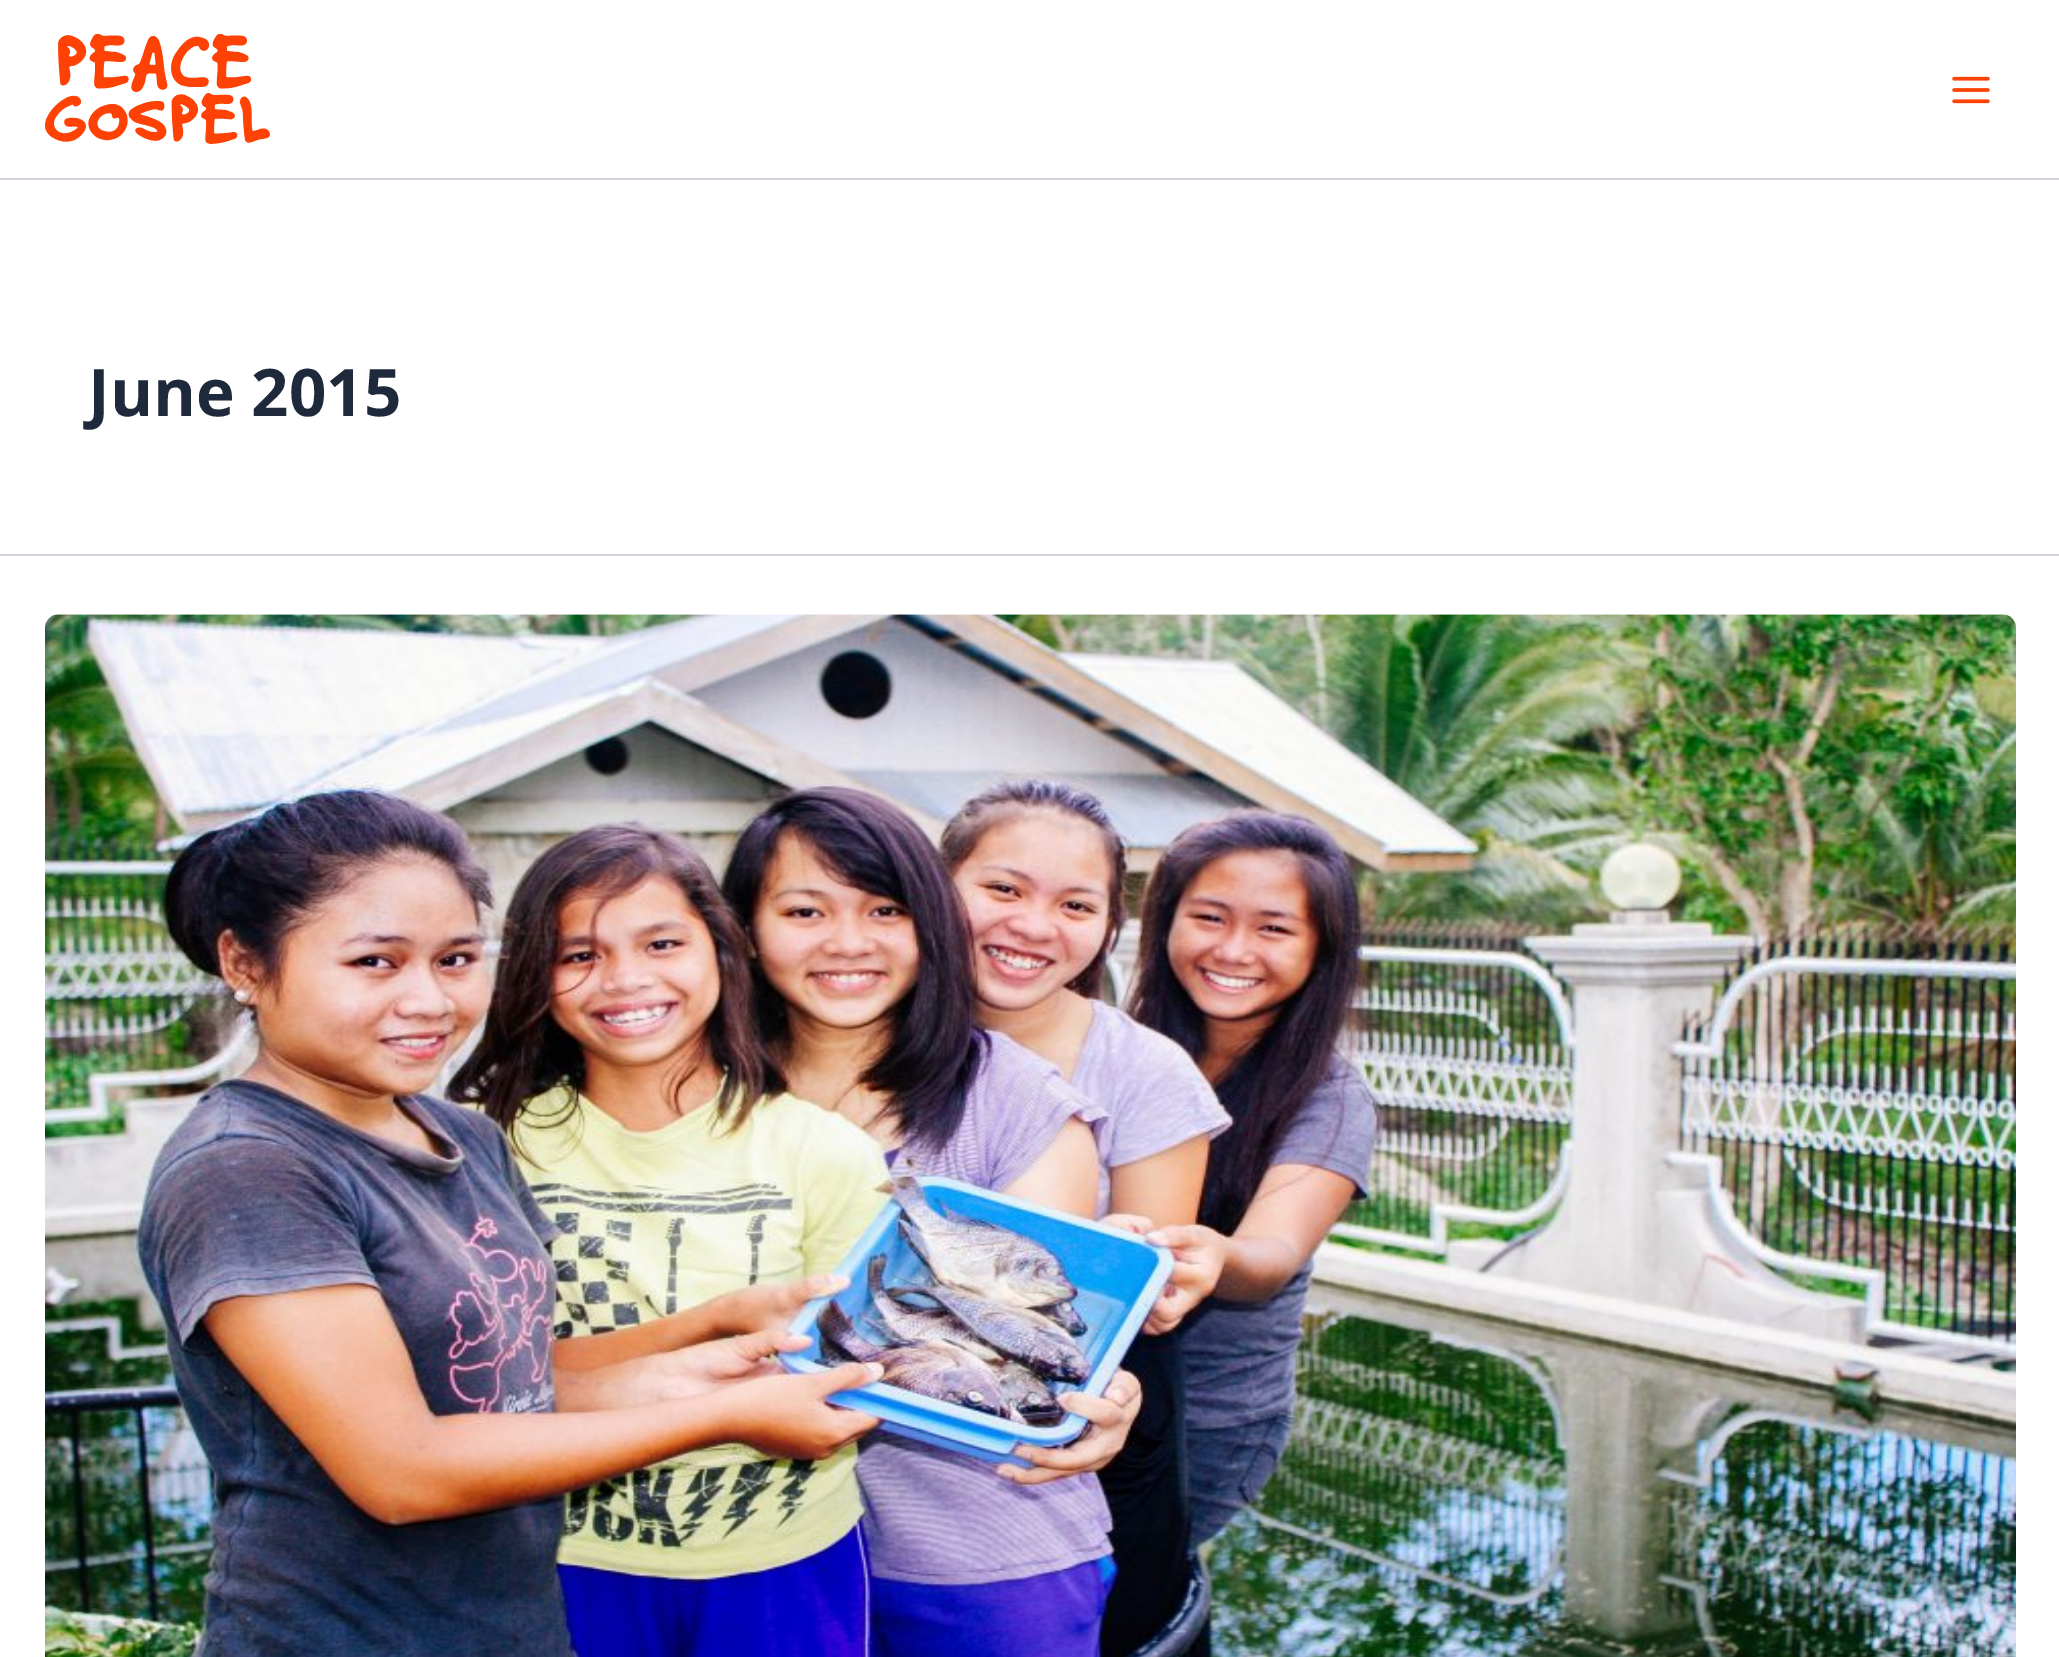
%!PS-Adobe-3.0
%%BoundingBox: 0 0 2059 1657
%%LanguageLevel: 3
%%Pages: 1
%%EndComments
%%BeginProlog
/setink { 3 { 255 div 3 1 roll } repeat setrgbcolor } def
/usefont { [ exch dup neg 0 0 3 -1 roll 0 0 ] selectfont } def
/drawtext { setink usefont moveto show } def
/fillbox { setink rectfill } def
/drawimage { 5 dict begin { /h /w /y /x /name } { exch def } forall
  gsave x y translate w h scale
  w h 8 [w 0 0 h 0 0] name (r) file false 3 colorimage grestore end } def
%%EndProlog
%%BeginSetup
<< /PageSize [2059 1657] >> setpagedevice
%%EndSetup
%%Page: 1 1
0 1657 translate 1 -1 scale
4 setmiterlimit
0 0 2059 1657 255 255 255 fillbox
0 178 2059 2 209 213 219 fillbox
(assets/img1.rgb) 45 34 225 110 drawimage
(assets/img2.rgb) 1952 76 38 28 drawimage
0 554 2059 2 209 213 219 fillbox
(June 2015) 88 416 /OpenSans-Bold 65.5 30 41 59 drawtext
(assets/img3.rgb) 45 614 1971 1043 drawimage
showpage
%%EOF
